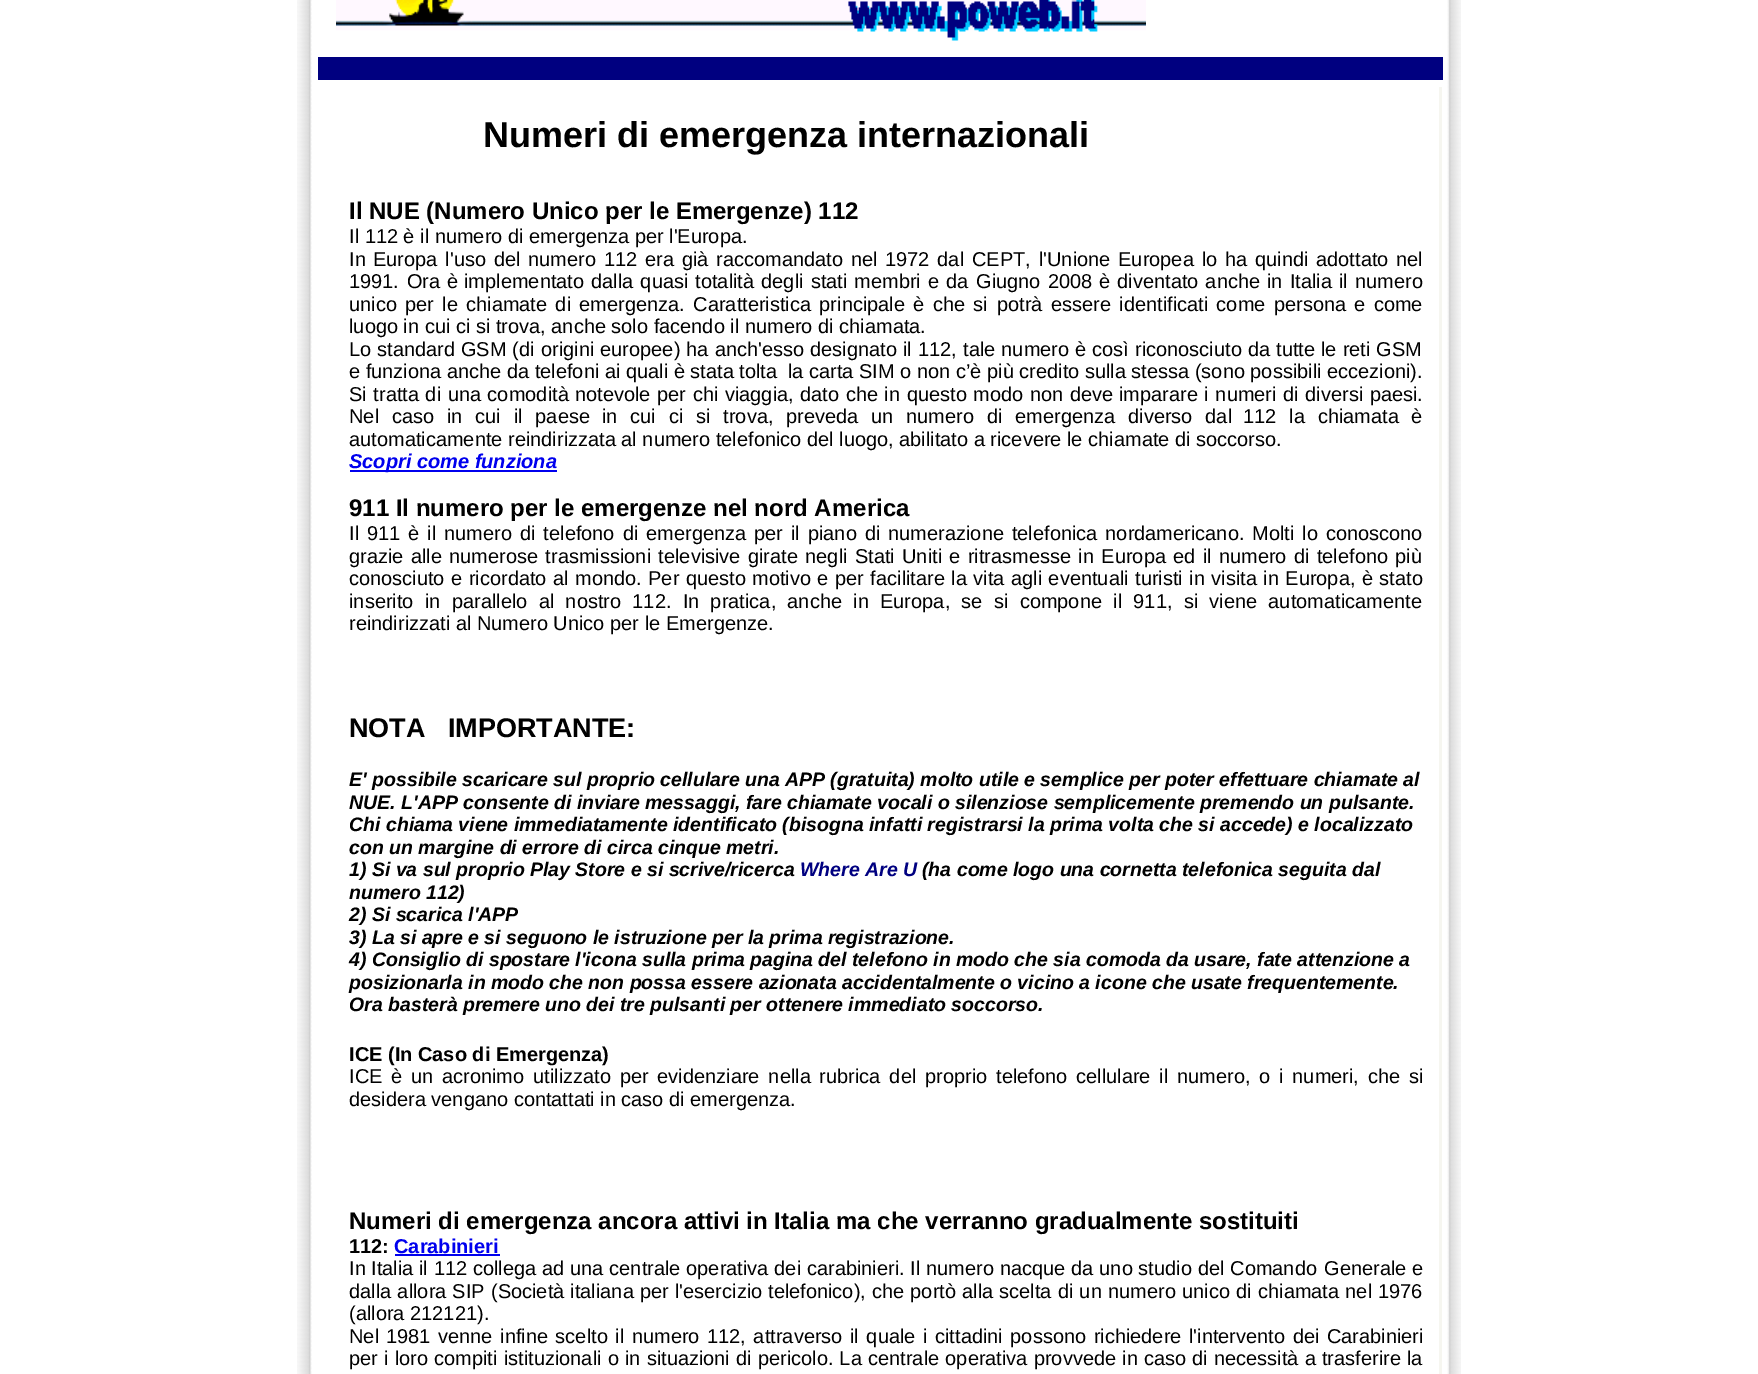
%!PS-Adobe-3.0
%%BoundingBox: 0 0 1758 1374
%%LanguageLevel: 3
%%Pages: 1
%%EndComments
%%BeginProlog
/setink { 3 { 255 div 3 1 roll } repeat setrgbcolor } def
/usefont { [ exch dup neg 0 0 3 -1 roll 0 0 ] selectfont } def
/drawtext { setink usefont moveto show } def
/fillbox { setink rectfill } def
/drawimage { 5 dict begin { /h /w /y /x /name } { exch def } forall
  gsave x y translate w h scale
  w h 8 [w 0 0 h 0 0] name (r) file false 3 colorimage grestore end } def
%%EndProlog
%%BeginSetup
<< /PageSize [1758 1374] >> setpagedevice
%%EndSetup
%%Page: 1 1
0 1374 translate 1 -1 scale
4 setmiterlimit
0 0 1758 1374 255 255 255 fillbox
(assets/img1.rgb) 297 0 15 1374 drawimage
(assets/img2.rgb) 336 0 810 41 drawimage
318 57 1125 23 0 0 128 fillbox
(Numeri di emergenza internazionali) 483 147 /LiberationSans-Bold 36 0 0 0 drawtext
(Il NUE \(Numero Unico per le Emergenze\) 112) 349 219 /LiberationSans-Bold 24 0 0 0 drawtext
(Il 112 è il numero di emergenza per l'Europa.) 349 243 /LiberationSans-Regular 20 0 0 0 drawtext
(In) 349 266 /LiberationSans-Regular 20 0 0 0 drawtext
373 266 moveto 2.25 0 32 (Europa l'uso del numero 112 era già raccomandato nel 1972 dal) widthshow
972 266 moveto 2.25 0 32 (CEPT, l'Unione Europea lo ha quindi adottato nel) widthshow
349 288 moveto 2 0 32 (1991. Ora è) widthshow
464 288 moveto 1.5 0 32 (implementato dalla quasi totalità degli stati membri e da) widthshow
976 288 moveto 1.5 0 32 (Giugno 2008 è diventato anche in Italia il numero) widthshow
349 311 moveto 2.75 0 32 (unico per le) widthshow
466 311 moveto 2.75 0 32 (chiamate di emergenza. Caratteristica principale è che si) widthshow
997 311 moveto 2.75 0 32 (potrà essere identificati come persona e come) widthshow
(luogo in cui ci si trova, anche solo facendo il numero di chiamata.) 349 333 /LiberationSans-Regular 20 0 0 0 drawtext
(Lo) 349 356 /LiberationSans-Regular 20 0 0 0 drawtext
377 356 moveto 0.5 0 32 (standard GSM \(di origini europee\) ha anch'esso designato il) widthshow
918 356 moveto 0.5 0 32 (112, tale numero è così riconosciuto da tutte le reti GSM) widthshow
(e funziona anche da telefoni ai quali è stata tolta) 349 378 /LiberationSans-Regular 20 0 0 0 drawtext
(la carta SIM o non c’è più credito sulla stessa \(sono possibili eccezioni\).) 788 378 /LiberationSans-Regular 20 0 0 0 drawtext
349 401 moveto 1 0 32 (Si tratta di una comodità) widthshow
575 401 moveto 1 0 32 (notevole per chi viaggia, dato che in questo modo non deve) widthshow
1119 401 moveto 1 0 32 (imparare i numeri di diversi paesi.) widthshow
349 423 moveto 7.25 0 32 (Nel caso in cui il paese) widthshow
602 423 moveto 7.25 0 32 (in cui ci si trova, preveda un numero di emergenza diverso dal) widthshow
1243 423 moveto 7.25 0 32 (112 la chiamata è) widthshow
(automaticamente reindirizzata al numero telefonico del luogo, abilitato a ricevere le chiamate di soccorso.) 349 446 /LiberationSans-Regular 20 0 0 0 drawtext
350 470 207 2 0 0 238 fillbox
(Scopri come funziona) 349 468 /LiberationSans-BoldItalic 20 0 0 238 drawtext
(911 Il numero per le emergenze nel nord America) 349 516 /LiberationSans-Bold 24 0 0 0 drawtext
/LiberationSans-Regular 20 usefont
349 540 moveto 2.4 0 32 (Il 911 è il numero di telefono di emergenza per il piano di numerazione telefonica nordamericano. Molti lo conoscono) widthshow
349 563 moveto 1.75 0 32 (grazie alle numerose trasmissioni televisive girate negli Stati Uniti e ritrasmesse in Europa ed il numero di telefono più) widthshow
349 585 moveto 0.9 0 32 (conosciuto e ricordato al mondo. Per questo motivo e per facilitare la vita agli eventuali turisti in visita in Europa, è stato) widthshow
349 608 moveto 5.75 0 32 (inserito in parallelo al nostro 112. In pratica, anche in Europa, se si compone il 911, si viene automaticamente) widthshow
(reindirizzati al Numero Unico per le Emergenze.) 349 630 /LiberationSans-Regular 20 0 0 0 drawtext
(NOTA   IMPORTANTE:) 349 737 /LiberationSans-Bold 27 0 0 0 drawtext
(E' possibile scaricare sul proprio cellulare una APP \(gratuita\) molto utile e semplice per poter effettuare chiamate al) 349 786 /LiberationSans-BoldItalic 19.5 0 0 0 drawtext
(NUE. L'APP consente di inviare messaggi, fare chiamate vocali o silenziose semplicemente premendo un pulsante.) 349 809 /LiberationSans-BoldItalic 19.5 0 0 0 drawtext
(Chi chiama viene immediatamente identificato \(bisogna infatti registrarsi la prima volta che si accede\) e localizzato) 349 831 /LiberationSans-BoldItalic 19.5 0 0 0 drawtext
(con un margine di errore di circa cinque metri.) 349 854 /LiberationSans-BoldItalic 19.5 0 0 0 drawtext
(1\) Si va sul proprio Play Store e si scrive/ricerca) 349 876 /LiberationSans-BoldItalic 19.5 0 0 0 drawtext
(Where Are U) 800 876 /LiberationSans-BoldItalic 19.5 0 0 128 drawtext
(\(ha come logo una cornetta telefonica seguita dal) 922 876 /LiberationSans-BoldItalic 19.5 0 0 0 drawtext
(numero 112\)) 349 899 /LiberationSans-BoldItalic 19.5 0 0 0 drawtext
(2\) Si scarica l'APP) 349 921 /LiberationSans-BoldItalic 19.5 0 0 0 drawtext
(3\) La si apre e si seguono le istruzione per la prima registrazione.) 349 944 /LiberationSans-BoldItalic 19.5 0 0 0 drawtext
(4\) Consiglio di spostare l'icona sulla prima pagina del telefono in modo che sia comoda da usare, fate attenzione a) 349 966 /LiberationSans-BoldItalic 19.5 0 0 0 drawtext
(posizionarla in modo che non possa essere azionata accidentalmente o vicino a icone che usate frequentemente.) 349 989 /LiberationSans-BoldItalic 19.5 0 0 0 drawtext
(Ora basterà premere uno dei tre pulsanti per ottenere immediato soccorso.) 349 1011 /LiberationSans-BoldItalic 19.5 0 0 0 drawtext
(ICE \(In Caso di Emergenza\)) 349 1061 /LiberationSans-Bold 20 0 0 0 drawtext
(ICE) 349 1083 /LiberationSans-Regular 20 0 0 0 drawtext
391 1083 moveto 3.25 0 32 (è un acronimo utilizzato per evidenziare nella rubrica del) widthshow
925 1083 moveto 3.25 0 32 (proprio telefono cellulare il numero, o i numeri, che si) widthshow
(desidera vengano contattati in caso di emergenza.) 349 1106 /LiberationSans-Regular 20 0 0 0 drawtext
(Numeri di emergenza ancora attivi in Italia ma che verranno gradualmente sostituiti) 349 1229 /LiberationSans-Bold 24 0 0 0 drawtext
(112:) 349 1253 /LiberationSans-Bold 20 0 0 0 drawtext
(Carabinieri) 394 1253 /LiberationSans-Bold 20 0 0 238 drawtext
395 1254 105 2 0 0 238 fillbox
(In) 349 1275 /LiberationSans-Regular 20 0 0 0 drawtext
371 1275 moveto 0.25 0 32 (Italia il 112 collega ad una centrale operativa dei carabinieri. Il numero nacque da uno studio del Comando) widthshow
(Generale e) 1324 1275 /LiberationSans-Regular 20 0 0 0 drawtext
349 1298 moveto 0.6 0 32 (dalla allora SIP \(Società italiana per l'esercizio) widthshow
768 1298 moveto 0.6 0 32 (telefonico\), che portò alla scelta di un numero unico di) widthshow
1258 1298 moveto 0.6 0 32 (chiamata nel 1976) widthshow
(\(allora 212121\).) 349 1320 /LiberationSans-Regular 20 0 0 0 drawtext
(Nel) 349 1343 /LiberationSans-Regular 20 0 0 0 drawtext
386 1343 moveto 2 0 32 (1981 venne infine scelto il numero 112, attraverso il quale i) widthshow
935 1343 moveto 2 0 32 (cittadini possono richiedere l'intervento dei Carabinieri) widthshow
(per) 349 1365 /LiberationSans-Regular 20 0 0 0 drawtext
384 1365 moveto 0.6 0 32 (i loro compiti istituzionali o in situazioni di pericolo. La) widthshow
868 1365 moveto 0.6 0 32 (centrale operativa provvede in caso di necessità a trasferire) widthshow
(la) 1407 1365 /LiberationSans-Regular 20 0 0 0 drawtext
1439 87 3 1287 246 246 240 fillbox
(assets/img3.rgb) 1447 0 14 1374 drawimage
showpage
%%EOF
